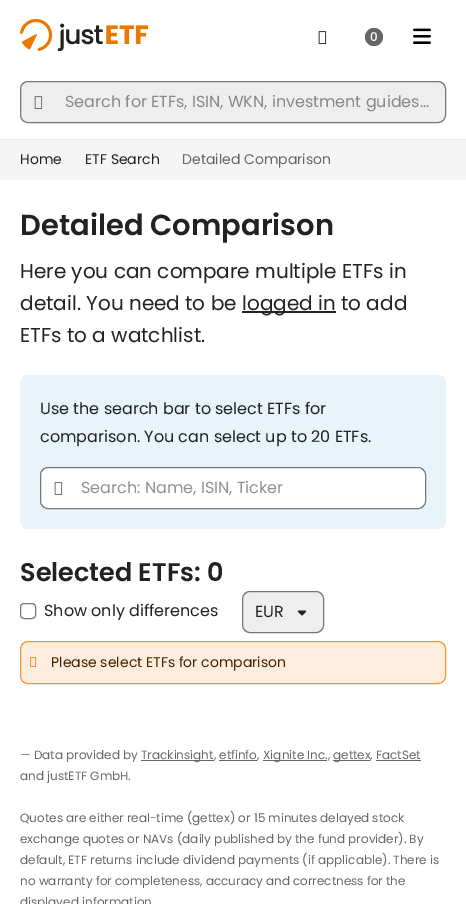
%!PS-Adobe-3.0
%%BoundingBox: 0 0 466 904
%%LanguageLevel: 3
%%Pages: 1
%%EndComments
%%BeginProlog
/setink { 3 { 255 div 3 1 roll } repeat setrgbcolor } def
/usefont { [ exch dup neg 0 0 3 -1 roll 0 0 ] selectfont } def
/drawtext { setink usefont moveto show } def
/fillbox { setink rectfill } def
/disc { newpath 0 360 arc closepath } def
/rrect { 5 dict begin { /r /h /w /y /x } { exch def } forall
  x r add y moveto x w add y 2 copy h add r arct x w add y h add x 1 index r arct
  x y h add x y r arct x y 2 copy exch w add exch r arct closepath end } def
/drawimage { 5 dict begin { /h /w /y /x /name } { exch def } forall
  gsave x y translate w h scale
  w h 8 [w 0 0 h 0 0] name (r) file false 3 colorimage grestore end } def
%%EndProlog
%%BeginSetup
<< /PageSize [466 904] >> setpagedevice
%%EndSetup
%%Page: 1 1
0 904 translate 1 -1 scale
4 setmiterlimit
0 0 466 904 255 255 255 fillbox
(assets/img1.rgb) 20 19 128 32 drawimage
(assets/img2.rgb) 413 28 18 16 drawimage
(assets/img3.rgb) 318 31 9 13 drawimage
102 102 102 setink
374 37 9 disc fill
(0) 370 41 /Poppins-Medium 12 255 255 255 drawtext
0 139 466 1 238 238 238 fillbox
20.5 81.5 425 41 7.5 rrect gsave fill grestore
119 119 119 setink
stroke
(assets/img4.rgb) 34 96 9 13 drawimage
(Search for ETFs, ISIN, WKN, investment guides…) 65 107 /Poppins-Regular 16 136 136 136 drawtext
0 140 466 40 245 245 245 fillbox
(Home) 20 164 /Poppins-Regular 14 34 34 34 drawtext
(ETF Search) 85 164 /Poppins-Regular 14 34 34 34 drawtext
(Detailed Comparison) 182 164 /Poppins-Regular 14 102 102 102 drawtext
(Detailed Comparison) 20 235 /Poppins-SemiBold 29 34 34 34 drawtext
(Here you can compare multiple ETFs in) 20 278 /Poppins-Regular 20 34 34 34 drawtext
(detail. You need to be) 20 310 /Poppins-Regular 20 34 34 34 drawtext
242 311 94 2 34 34 34 fillbox
(logged in to add) 242 310 /Poppins-Regular 20 34 34 34 drawtext
(ETFs to a watchlist.) 20 342 /Poppins-Regular 20 34 34 34 drawtext
232 243 250 setink
20 375 426 154 8 rrect fill
(Use the search bar to select ETFs for) 40 414 /Poppins-Regular 16 34 34 34 drawtext
(comparison. You can select up to 20 ETFs.) 40 442 /Poppins-Regular 16 34 34 34 drawtext
255 255 255 setink
40.5 467.5 385 41 7.5 rrect gsave fill grestore
119 119 119 setink
stroke
(assets/img5.rgb) 54 482 9 13 drawimage
(Search: Name, ISIN, Ticker) 81 493 /Poppins-Regular 16 145 145 145 drawtext
(Selected ETFs: 0) 20 581 /Poppins-SemiBold 25.5 34 34 34 drawtext
119 119 119 setink
20.5 603.5 15 15 3.5 rrect stroke
(Show only differences) 44 616 /Poppins-Regular 16 34 34 34 drawtext
238 238 238 setink
242 591 82 42 8 rrect fill
(assets/img6.rgb) 297 610 10 6 drawimage
119 119 119 setink
242.5 591.5 81 41 7.5 rrect stroke
(EUR) 255 617 /Poppins-Regular 16 34 34 34 drawtext
252 237 222 setink
20.5 641.5 425 42 7.5 rrect gsave fill grestore
250 148 52 setink
stroke
(assets/img7.rgb) 30 657 7 10 drawimage
(Please select ETFs for comparison) 51 667 /Poppins-Regular 14 69 33 0 drawtext
(— Data provided by) 20 759 /Poppins-Regular 12 102 102 102 drawtext
141 760 73 1 102 102 102 fillbox
(Trackinsight, etfinfo,) 141 759 /Poppins-Regular 12 102 102 102 drawtext
263 760 64 1 102 102 102 fillbox
(Xignite Inc.,) 263 759 /Poppins-Regular 12 102 102 102 drawtext
333 760 37 1 102 102 102 fillbox
(gettex, FactSet) 333 759 /Poppins-Regular 12 102 102 102 drawtext
219 760 38 1 102 102 102 fillbox
376 760 45 1 102 102 102 fillbox
(and justETF GmbH.) 20 780 /Poppins-Regular 12 102 102 102 drawtext
(Quotes are either real-time \(gettex\) or 15 minutes delayed stock) 20 822 /Poppins-Regular 12 102 102 102 drawtext
(exchange quotes or NAVs \(daily published by the fund provider\). By) 20 843 /Poppins-Regular 12 102 102 102 drawtext
(default, ETF returns include dividend payments \(if applicable\). There is) 20 864 /Poppins-Regular 12 102 102 102 drawtext
(no warranty for completeness, accuracy and correctness for the) 20 885 /Poppins-Regular 12 102 102 102 drawtext
(displayed information) 20 906 /Poppins-Regular 12 102 102 102 drawtext
showpage
%%EOF
